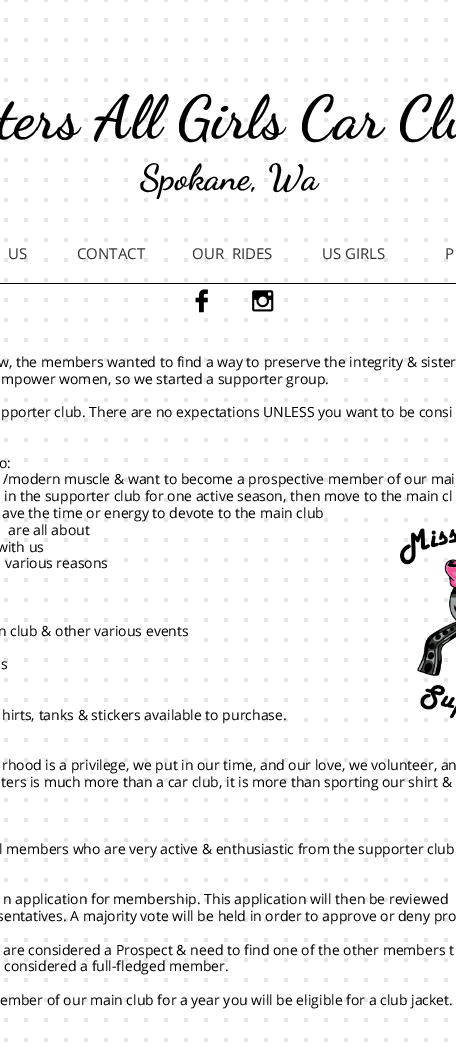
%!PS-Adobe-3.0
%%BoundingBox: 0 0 456 1052
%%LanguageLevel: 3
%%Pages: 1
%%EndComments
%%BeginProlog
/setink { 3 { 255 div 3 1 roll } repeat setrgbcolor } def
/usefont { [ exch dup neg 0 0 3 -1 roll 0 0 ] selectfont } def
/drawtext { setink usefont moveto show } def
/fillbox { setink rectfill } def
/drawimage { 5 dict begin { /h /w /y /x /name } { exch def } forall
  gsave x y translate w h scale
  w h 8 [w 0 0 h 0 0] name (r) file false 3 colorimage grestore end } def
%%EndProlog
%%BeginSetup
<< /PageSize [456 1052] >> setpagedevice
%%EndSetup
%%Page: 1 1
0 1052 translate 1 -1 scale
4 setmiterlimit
0 0 456 1052 255 255 255 fillbox
(assets/img1.rgb) 4 0 444 1042 drawimage
(ters All Girls Car Clu) -2 137 /DancingScript-Bold 60 0 0 0 drawtext
(Spokane, Wa) 140 189 /DancingScript-Bold 36 0 0 0 drawtext
0 283 456 1 0 0 0 fillbox
(US) 8 259 /OpenSans-Regular 15 51 51 51 drawtext
(CONTACT) 77 259 /OpenSans-Regular 15 51 51 51 drawtext
(OUR  RIDES) 192 259 /OpenSans-Regular 15 51 51 51 drawtext
(US GIRLS) 322 259 /OpenSans-Regular 15 51 51 51 drawtext
(P) 445 259 /OpenSans-Regular 15 51 51 51 drawtext
(assets/img2.rgb) 195 289 13 24 drawimage
(assets/img3.rgb) 252 290 22 22 drawimage
(w, the members wanted to find a way to preserve the integrity & sister) -2 367 /OpenSans-Regular 14 0 0 0 drawtext
(mpower women, so we started a supporter group.) 1 384 /OpenSans-Regular 14 0 0 0 drawtext
(pporter club. There are no expectations UNLESS you want to be consi) 1 417 /OpenSans-Regular 14 0 0 0 drawtext
(o:) -1 468 /OpenSans-Regular 14 0 0 0 drawtext
(/modern muscle & want to become a prospective member of our mai) 3 484 /OpenSans-Regular 14 0 0 0 drawtext
(in the supporter club for one active season, then move to the main cl) 4 501 /OpenSans-Regular 14 0 0 0 drawtext
(ave the time or energy to devote to the main club) 2 518 /OpenSans-Regular 14 0 0 0 drawtext
(are all about) 8 535 /OpenSans-Regular 14 0 0 0 drawtext
(with us) -3 552 /OpenSans-Regular 14 0 0 0 drawtext
(various reasons) 5 568 /OpenSans-Regular 14 0 0 0 drawtext
(n club & other various events) -2 636 /OpenSans-Regular 14 0 0 0 drawtext
(s) 1 669 /OpenSans-Regular 14 0 0 0 drawtext
(hirts, tanks & stickers available to purchase.) 2 720 /OpenSans-Regular 14 0 0 0 drawtext
(rhood is a privilege, we put in our time, and our love, we volunteer, an) 2 770 /OpenSans-Regular 14 0 0 0 drawtext
(ters is much more than a car club, it is more than sporting our shirt &) 1 787 /OpenSans-Regular 14 0 0 0 drawtext
(l members who are very active & enthusiastic from the supporter club) -1 854 /OpenSans-Regular 14 0 0 0 drawtext
(n application for membership. This application will then be reviewed) 3 904 /OpenSans-Regular 14 0 0 0 drawtext
(sentatives. A majority vote will be held in order to approve or deny pro) -3 921 /OpenSans-Regular 14 0 0 0 drawtext
(are considered a Prospect & need to find one of the other members t) 3 955 /OpenSans-Regular 14 0 0 0 drawtext
(considered a full-fledged member.) 4 971 /OpenSans-Regular 14 0 0 0 drawtext
(ember of our main club for a year you will be eligible for a club jacket.) 0 1005 /OpenSans-Regular 14 0 0 0 drawtext
(assets/img4.rgb) 400 528 56 191 drawimage
showpage
%%EOF
